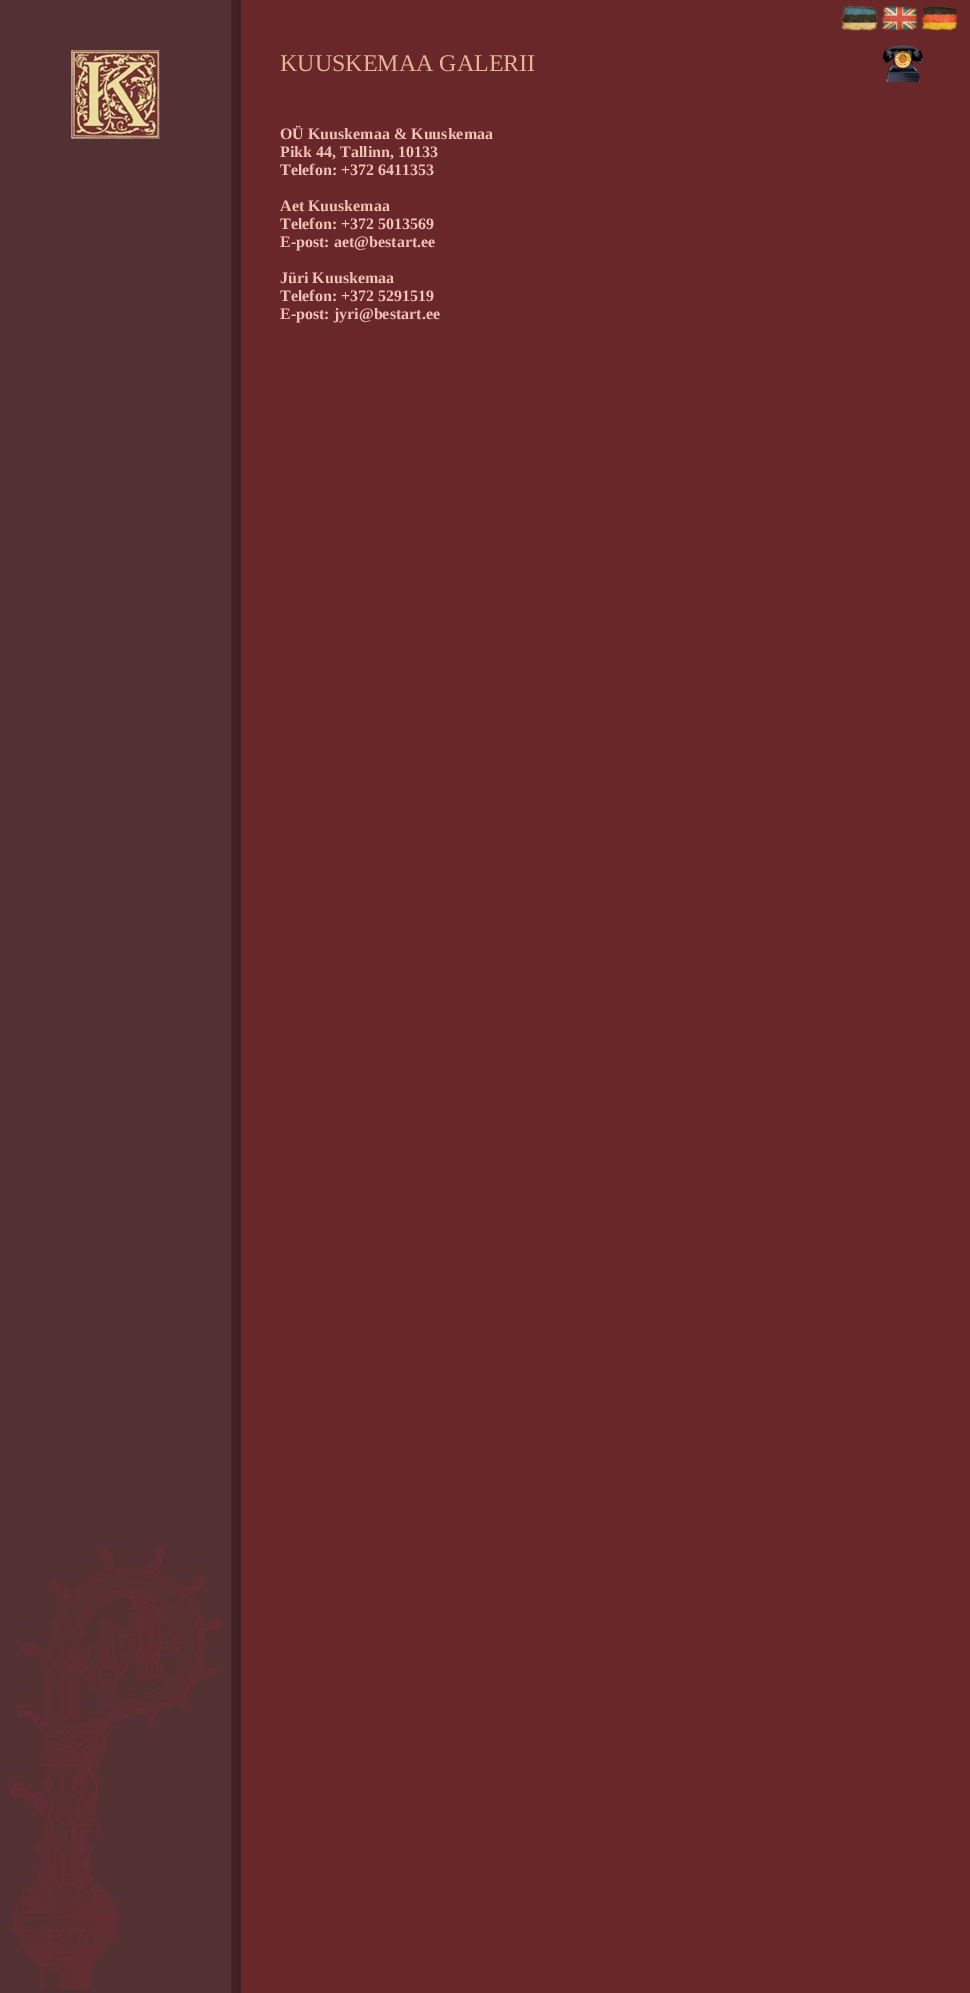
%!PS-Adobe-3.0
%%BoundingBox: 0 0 970 1993
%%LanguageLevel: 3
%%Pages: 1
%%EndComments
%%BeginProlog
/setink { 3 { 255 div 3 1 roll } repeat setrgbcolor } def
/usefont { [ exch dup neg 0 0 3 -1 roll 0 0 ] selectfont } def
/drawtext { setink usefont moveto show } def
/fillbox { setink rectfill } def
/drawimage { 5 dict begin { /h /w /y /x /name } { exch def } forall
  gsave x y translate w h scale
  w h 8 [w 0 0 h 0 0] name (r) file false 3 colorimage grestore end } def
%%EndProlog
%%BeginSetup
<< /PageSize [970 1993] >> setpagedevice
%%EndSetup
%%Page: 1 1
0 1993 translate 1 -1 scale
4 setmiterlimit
0 0 970 1993 105 39 41 fillbox
(assets/img1.rgb) 0 0 243 1993 drawimage
(assets/img2.rgb) 840 5 38 27 drawimage
(assets/img3.rgb) 881 6 37 25 drawimage
(assets/img4.rgb) 921 6 37 25 drawimage
(assets/img5.rgb) 71 50 89 89 drawimage
(KUUSKEMAA GALERII) 280 71 /LiberationSerif-Regular 24 229 180 147 drawtext
(OÜ Kuuskemaa & Kuuskemaa) 280 139 /LiberationSerif-Bold 16 238 194 183 drawtext
(Pikk 44, Tallinn, 10133) 280 157 /LiberationSerif-Bold 16 238 194 183 drawtext
(Telefon: +372 6411353) 280 175 /LiberationSerif-Bold 16 238 194 183 drawtext
(Aet Kuuskemaa) 280 211 /LiberationSerif-Bold 16 238 194 183 drawtext
(Telefon: +372 5013569) 280 229 /LiberationSerif-Bold 16 238 194 183 drawtext
(E-post: aet@bestart.ee) 280 247 /LiberationSerif-Bold 16 238 194 183 drawtext
(Jüri Kuuskemaa) 280 283 /LiberationSerif-Bold 16 238 194 183 drawtext
(Telefon: +372 5291519) 280 301 /LiberationSerif-Bold 16 238 194 183 drawtext
(E-post: jyri@bestart.ee) 280 319 /LiberationSerif-Bold 16 238 194 183 drawtext
(assets/img6.rgb) 4 1548 219 442 drawimage
(assets/img7.rgb) 883 45 40 37 drawimage
showpage
%%EOF
